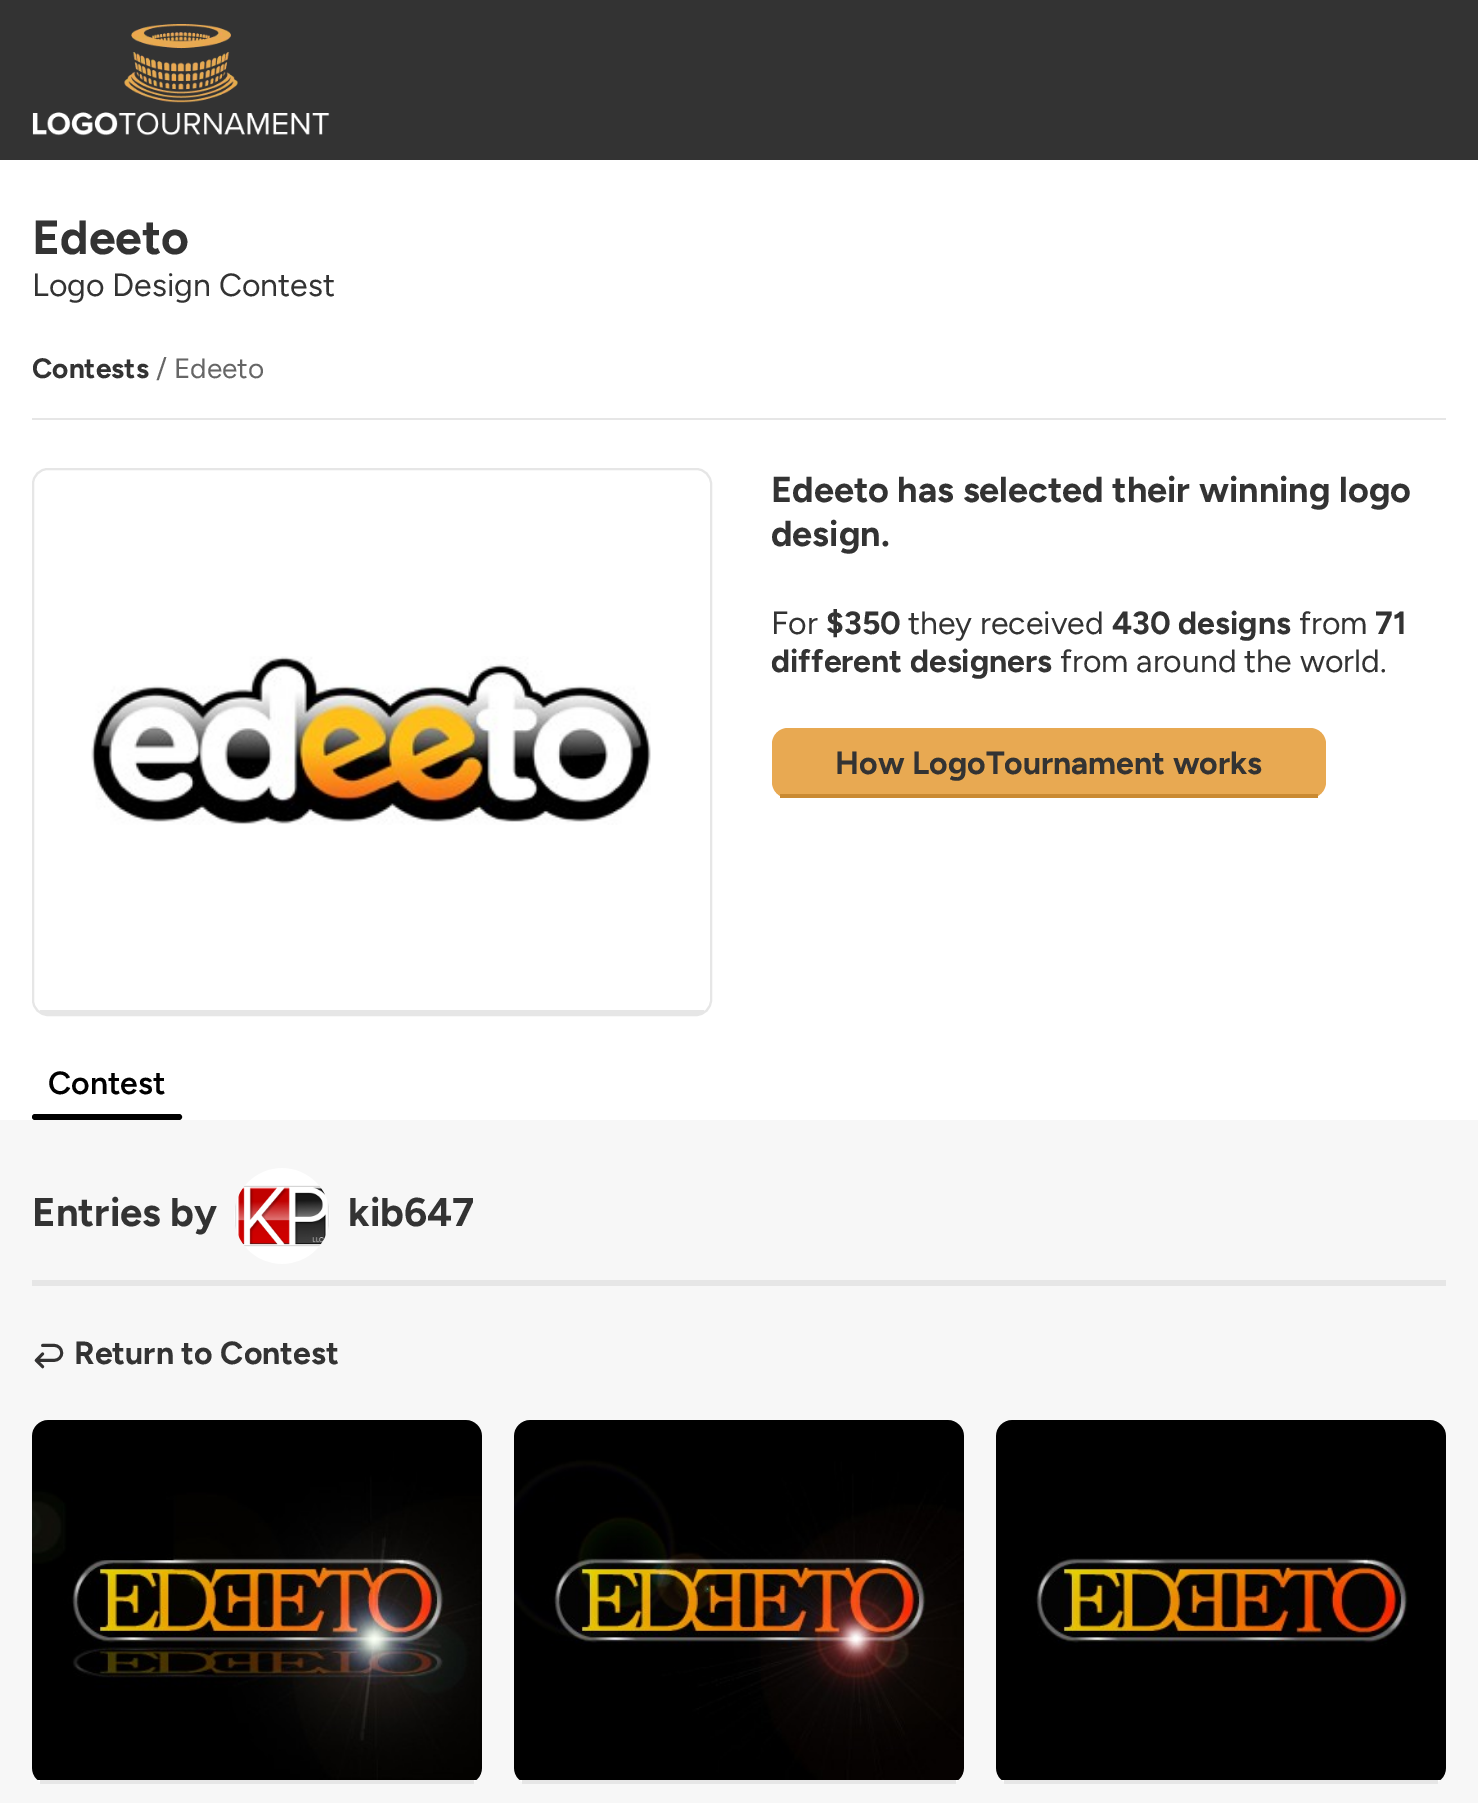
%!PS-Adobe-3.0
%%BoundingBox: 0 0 1478 1803
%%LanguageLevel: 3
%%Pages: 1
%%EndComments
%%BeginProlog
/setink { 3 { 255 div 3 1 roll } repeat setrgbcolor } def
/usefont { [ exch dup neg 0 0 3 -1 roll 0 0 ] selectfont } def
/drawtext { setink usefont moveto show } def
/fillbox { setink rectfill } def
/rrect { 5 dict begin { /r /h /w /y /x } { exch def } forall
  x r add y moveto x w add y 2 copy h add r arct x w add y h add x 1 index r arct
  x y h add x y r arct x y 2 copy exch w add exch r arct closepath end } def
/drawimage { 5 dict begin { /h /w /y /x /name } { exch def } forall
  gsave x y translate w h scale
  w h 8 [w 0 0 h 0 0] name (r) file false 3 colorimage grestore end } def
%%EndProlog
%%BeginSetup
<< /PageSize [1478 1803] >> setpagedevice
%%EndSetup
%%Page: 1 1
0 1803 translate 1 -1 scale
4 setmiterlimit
0 0 1478 1803 255 255 255 fillbox
0 0 1478 160 51 51 51 fillbox
(assets/img1.rgb) 32 24 298 112 drawimage
(Edeeto) 32 254 /Figtree-Bold 48 51 51 51 drawtext
(Logo Design Contest) 32 296 /Figtree-Regular 32 51 51 51 drawtext
(Contests) 32 378 /Figtree-Bold 28 51 51 51 drawtext
(/ Edeeto) 156 378 /Figtree-Regular 28 102 102 102 drawtext
32 418 1414 2 230 230 230 fillbox
(assets/img2.rgb) 91 656 560 169 drawimage
2 setlinewidth
33 469 678 546 15 rrect stroke
40 1010 664 4 230 230 230 fillbox
(Edeeto has selected their winning logo) 771 502 /Figtree-Bold 36 51 51 51 drawtext
(design.) 771 546 /Figtree-Bold 36 51 51 51 drawtext
(For) 771 634 /Figtree-Regular 32 51 51 51 drawtext
($350) 826 634 /Figtree-Bold 32 51 51 51 drawtext
(they received) 908 634 /Figtree-Regular 32 51 51 51 drawtext
(430 designs) 1112 634 /Figtree-Bold 32 51 51 51 drawtext
(from) 1299 634 /Figtree-Regular 32 51 51 51 drawtext
(71) 1375 634 /Figtree-Bold 32 51 51 51 drawtext
(different designers) 771 672 /Figtree-Bold 32 51 51 51 drawtext
(from around the world.) 1060 672 /Figtree-Regular 32 51 51 51 drawtext
232 169 82 setink
772 728 554 70 16 rrect fill
780 794 538 4 202 138 50 fillbox
(How LogoTournament works) 835 774 /Figtree-Bold 32 51 51 51 drawtext
(Contest) 48 1094 /Figtree-SemiBold 32 0 0 0 drawtext
33 1115 148 4 2 rrect gsave fill grestore
stroke
0 1120 1478 683 247 247 247 fillbox
32 1280 1414 6 230 230 230 fillbox
(Entries by) 32 1226 /Figtree-Bold 40 51 51 51 drawtext
(assets/img3.rgb) 234 1168 96 96 drawimage
(kib647) 348 1226 /Figtree-Bold 40 51 51 51 drawtext
(assets/img4.rgb) 34 1343 30 26 drawimage
(Return to Contest) 74 1364 /Figtree-Bold 32 51 51 51 drawtext
255 255 255 setink
32 1420 450 364 16 rrect fill
(assets/img5.rgb) 32 1420 450 360 drawimage
40 1780 434 4 230 230 230 fillbox
255 255 255 setink
514 1420 450 364 16 rrect fill
(assets/img6.rgb) 514 1420 450 360 drawimage
522 1780 434 4 230 230 230 fillbox
255 255 255 setink
996 1420 450 364 16 rrect fill
(assets/img7.rgb) 996 1420 450 360 drawimage
1004 1780 434 4 230 230 230 fillbox
showpage
%%EOF
